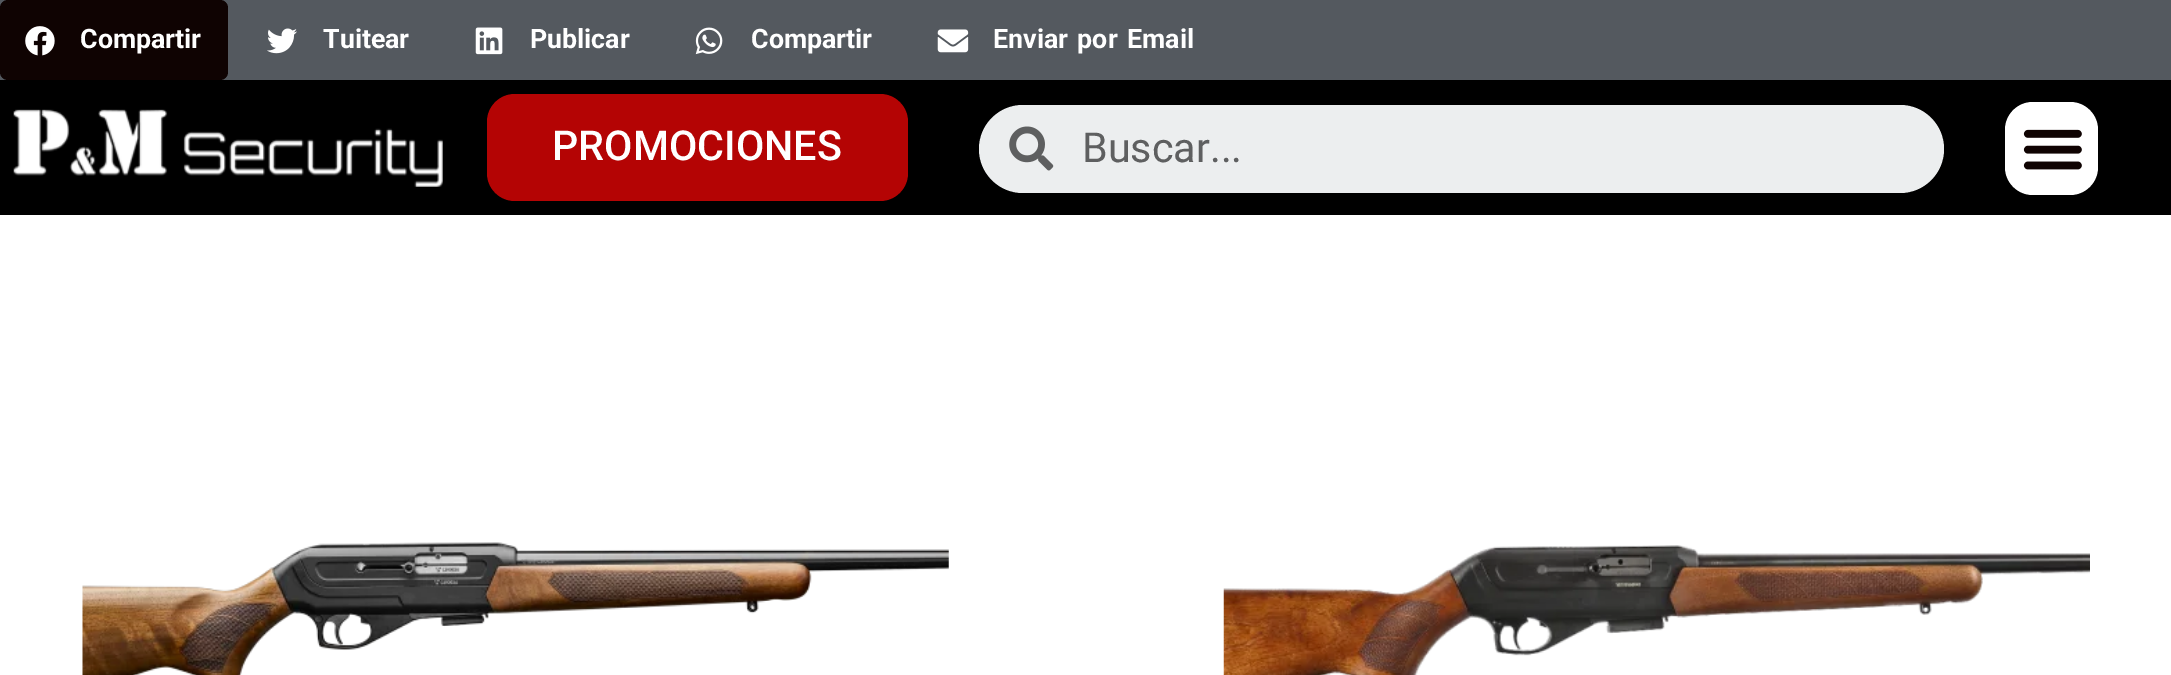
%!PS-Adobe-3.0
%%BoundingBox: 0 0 2171 675
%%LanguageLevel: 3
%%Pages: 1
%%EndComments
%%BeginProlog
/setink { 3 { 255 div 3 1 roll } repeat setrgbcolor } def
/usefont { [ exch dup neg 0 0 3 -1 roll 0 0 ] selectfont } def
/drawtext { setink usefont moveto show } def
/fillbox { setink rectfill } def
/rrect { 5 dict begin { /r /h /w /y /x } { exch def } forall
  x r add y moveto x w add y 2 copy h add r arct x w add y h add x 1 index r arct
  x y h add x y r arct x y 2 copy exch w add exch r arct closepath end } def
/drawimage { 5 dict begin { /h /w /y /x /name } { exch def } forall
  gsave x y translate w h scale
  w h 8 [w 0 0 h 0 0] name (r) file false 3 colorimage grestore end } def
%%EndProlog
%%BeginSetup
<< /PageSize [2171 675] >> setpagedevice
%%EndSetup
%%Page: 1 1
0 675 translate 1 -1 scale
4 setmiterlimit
0 0 2171 675 255 255 255 fillbox
0 0 2171 80 84 89 95 fillbox
15 3 2 setink
0 0 228 80 8 rrect fill
(assets/img1.rgb) 25 26 30 30 drawimage
(Compartir) 80 48 /Roboto-Bold 26.75 255 255 255 drawtext
(assets/img2.rgb) 267 28 30 26 drawimage
(Tuitear) 323 48 /Roboto-Bold 26.75 255 255 255 drawtext
(assets/img3.rgb) 475 27 28 28 drawimage
(Publicar) 530 48 /Roboto-Bold 26.75 255 255 255 drawtext
(assets/img4.rgb) 695 27 28 28 drawimage
(Compartir) 751 48 /Roboto-Bold 26.75 255 255 255 drawtext
(assets/img5.rgb) 937 29 32 24 drawimage
993 48 moveto 3 0 32 (Enviar por Email) widthshow
0 80 2171 135 0 0 0 fillbox
(assets/img6.rgb) 13 109 430 78 drawimage
180 4 4 setink
487 94 421 107 28 rrect fill
(PROMOCIONES) 552 160 /Roboto-Medium 41.25 255 255 255 drawtext
236 238 239 setink
979 105 965 88 44 rrect fill
(assets/img7.rgb) 1009 126 45 45 drawimage
(Buscar...) 1082 162 /Roboto-Regular 41.25 94 95 96 drawtext
255 255 255 setink
2005 102 93 93 28 rrect fill
(assets/img8.rgb) 2023 129 59 41 drawimage
(assets/img9.rgb) 82 542 867 133 drawimage
(assets/img10.rgb) 1223 545 867 130 drawimage
showpage
%%EOF
